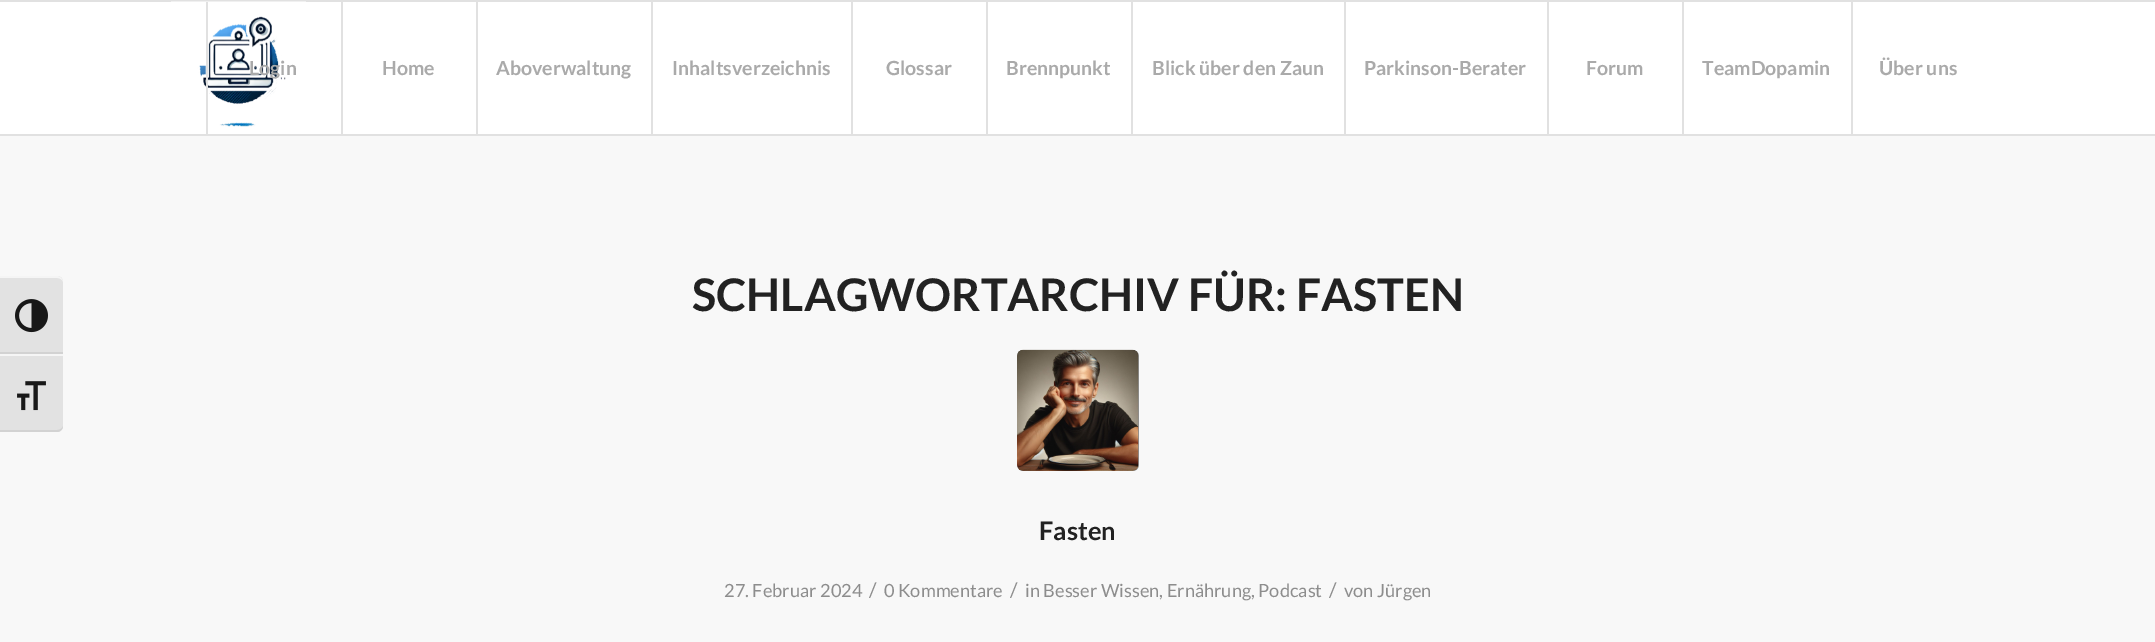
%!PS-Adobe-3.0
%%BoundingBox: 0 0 2155 642
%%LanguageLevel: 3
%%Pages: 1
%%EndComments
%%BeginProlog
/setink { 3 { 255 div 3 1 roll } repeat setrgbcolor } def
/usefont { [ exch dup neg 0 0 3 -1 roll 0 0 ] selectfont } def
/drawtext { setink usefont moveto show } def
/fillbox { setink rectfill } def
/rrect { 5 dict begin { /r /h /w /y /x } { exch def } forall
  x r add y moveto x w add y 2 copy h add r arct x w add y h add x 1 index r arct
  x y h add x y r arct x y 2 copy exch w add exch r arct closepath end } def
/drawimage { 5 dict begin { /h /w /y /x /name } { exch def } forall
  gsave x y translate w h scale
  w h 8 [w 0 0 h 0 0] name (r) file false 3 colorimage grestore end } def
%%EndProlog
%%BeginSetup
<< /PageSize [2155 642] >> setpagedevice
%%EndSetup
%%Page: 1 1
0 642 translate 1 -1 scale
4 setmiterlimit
0 0 2155 642 255 255 255 fillbox
0 136 2155 506 248 248 248 fillbox
226 226 226 setink
0 276 moveto 57 276 lineto 60.5 276 63 278.5 63 282 curveto 63 354 lineto 0 354 lineto closepath fill
245 245 245 setink
0 276 moveto 0 278 lineto 57 278 lineto 60 278 63 280 63 282 curveto 63 279 60 276 57 276 curveto closepath fill
0 352 63 2 210 210 210 fillbox
(assets/img1.rgb) 15 299 33 34 drawimage
226 226 226 setink
0 354 moveto 63 354 lineto 63 426 lineto 63 429.5 60.5 432 57 432 curveto 0 432 lineto closepath fill
0 354 63 2 245 245 245 fillbox
210 210 210 setink
0 430 moveto 0 432 lineto 57 432 lineto 60 432 63 429 63 426 curveto 63 428 60 430 57 430 curveto closepath fill
(assets/img2.rgb) 17 381 29 30 drawimage
0 0 2155 2 225 225 225 fillbox
0 134 2155 2 225 225 225 fillbox
(assets/img3.rgb) 171 1 135 126 drawimage
206 2 2 132 225 225 225 fillbox
(Login) 249 75 /Lato-Bold 19.5 170 170 170 drawtext
341 2 2 132 225 225 225 fillbox
(Home) 382 75 /Lato-Bold 19.5 170 170 170 drawtext
476 2 2 132 225 225 225 fillbox
(Aboverwaltung) 496 75 /Lato-Bold 19.5 170 170 170 drawtext
651 2 2 132 225 225 225 fillbox
(Inhaltsverzeichnis) 672 75 /Lato-Bold 19.5 170 170 170 drawtext
851 2 2 132 225 225 225 fillbox
(Glossar) 886 75 /Lato-Bold 19.5 170 170 170 drawtext
986 2 2 132 225 225 225 fillbox
(Brennpunkt) 1006 75 /Lato-Bold 19.5 170 170 170 drawtext
1131 2 2 132 225 225 225 fillbox
(Blick über den Zaun) 1152 75 /Lato-Bold 19.5 170 170 170 drawtext
1344 2 2 132 225 225 225 fillbox
(Parkinson-Berater) 1364 75 /Lato-Bold 19.5 170 170 170 drawtext
1547 2 2 132 225 225 225 fillbox
(Forum) 1586 75 /Lato-Bold 19.5 170 170 170 drawtext
1682 2 2 132 225 225 225 fillbox
(TeamDopamin) 1702 75 /Lato-Bold 19.5 170 170 170 drawtext
1851 2 2 132 225 225 225 fillbox
(Über uns) 1879 75 /Lato-Bold 19.5 170 170 170 drawtext
(SCHLAGWORTARCHIV FÜR: FASTEN) 692 311 /Lato-Bold 45 34 34 34 drawtext
141 141 141 setink
1017 350 122 121 6 rrect fill
(assets/img4.rgb) 1017 349 122 122 drawimage
(Fasten) 1039 540 /Lato-Bold 25.5 34 34 34 drawtext
(27. Februar 2024) 724 597 /Lato-Regular 18.2 141 141 141 drawtext
(/) 869 597 /Lato-Regular 20 141 141 141 drawtext
(0 Kommentare) 884 597 /Lato-Regular 18.2 141 141 141 drawtext
(/) 1010 597 /Lato-Regular 20 141 141 141 drawtext
(in Besser Wissen, Ernährung, Podcast) 1025 597 /Lato-Regular 18.2 141 141 141 drawtext
(/) 1329 597 /Lato-Regular 20 141 141 141 drawtext
(von Jürgen) 1344 597 /Lato-Regular 18.2 141 141 141 drawtext
showpage
%%EOF
